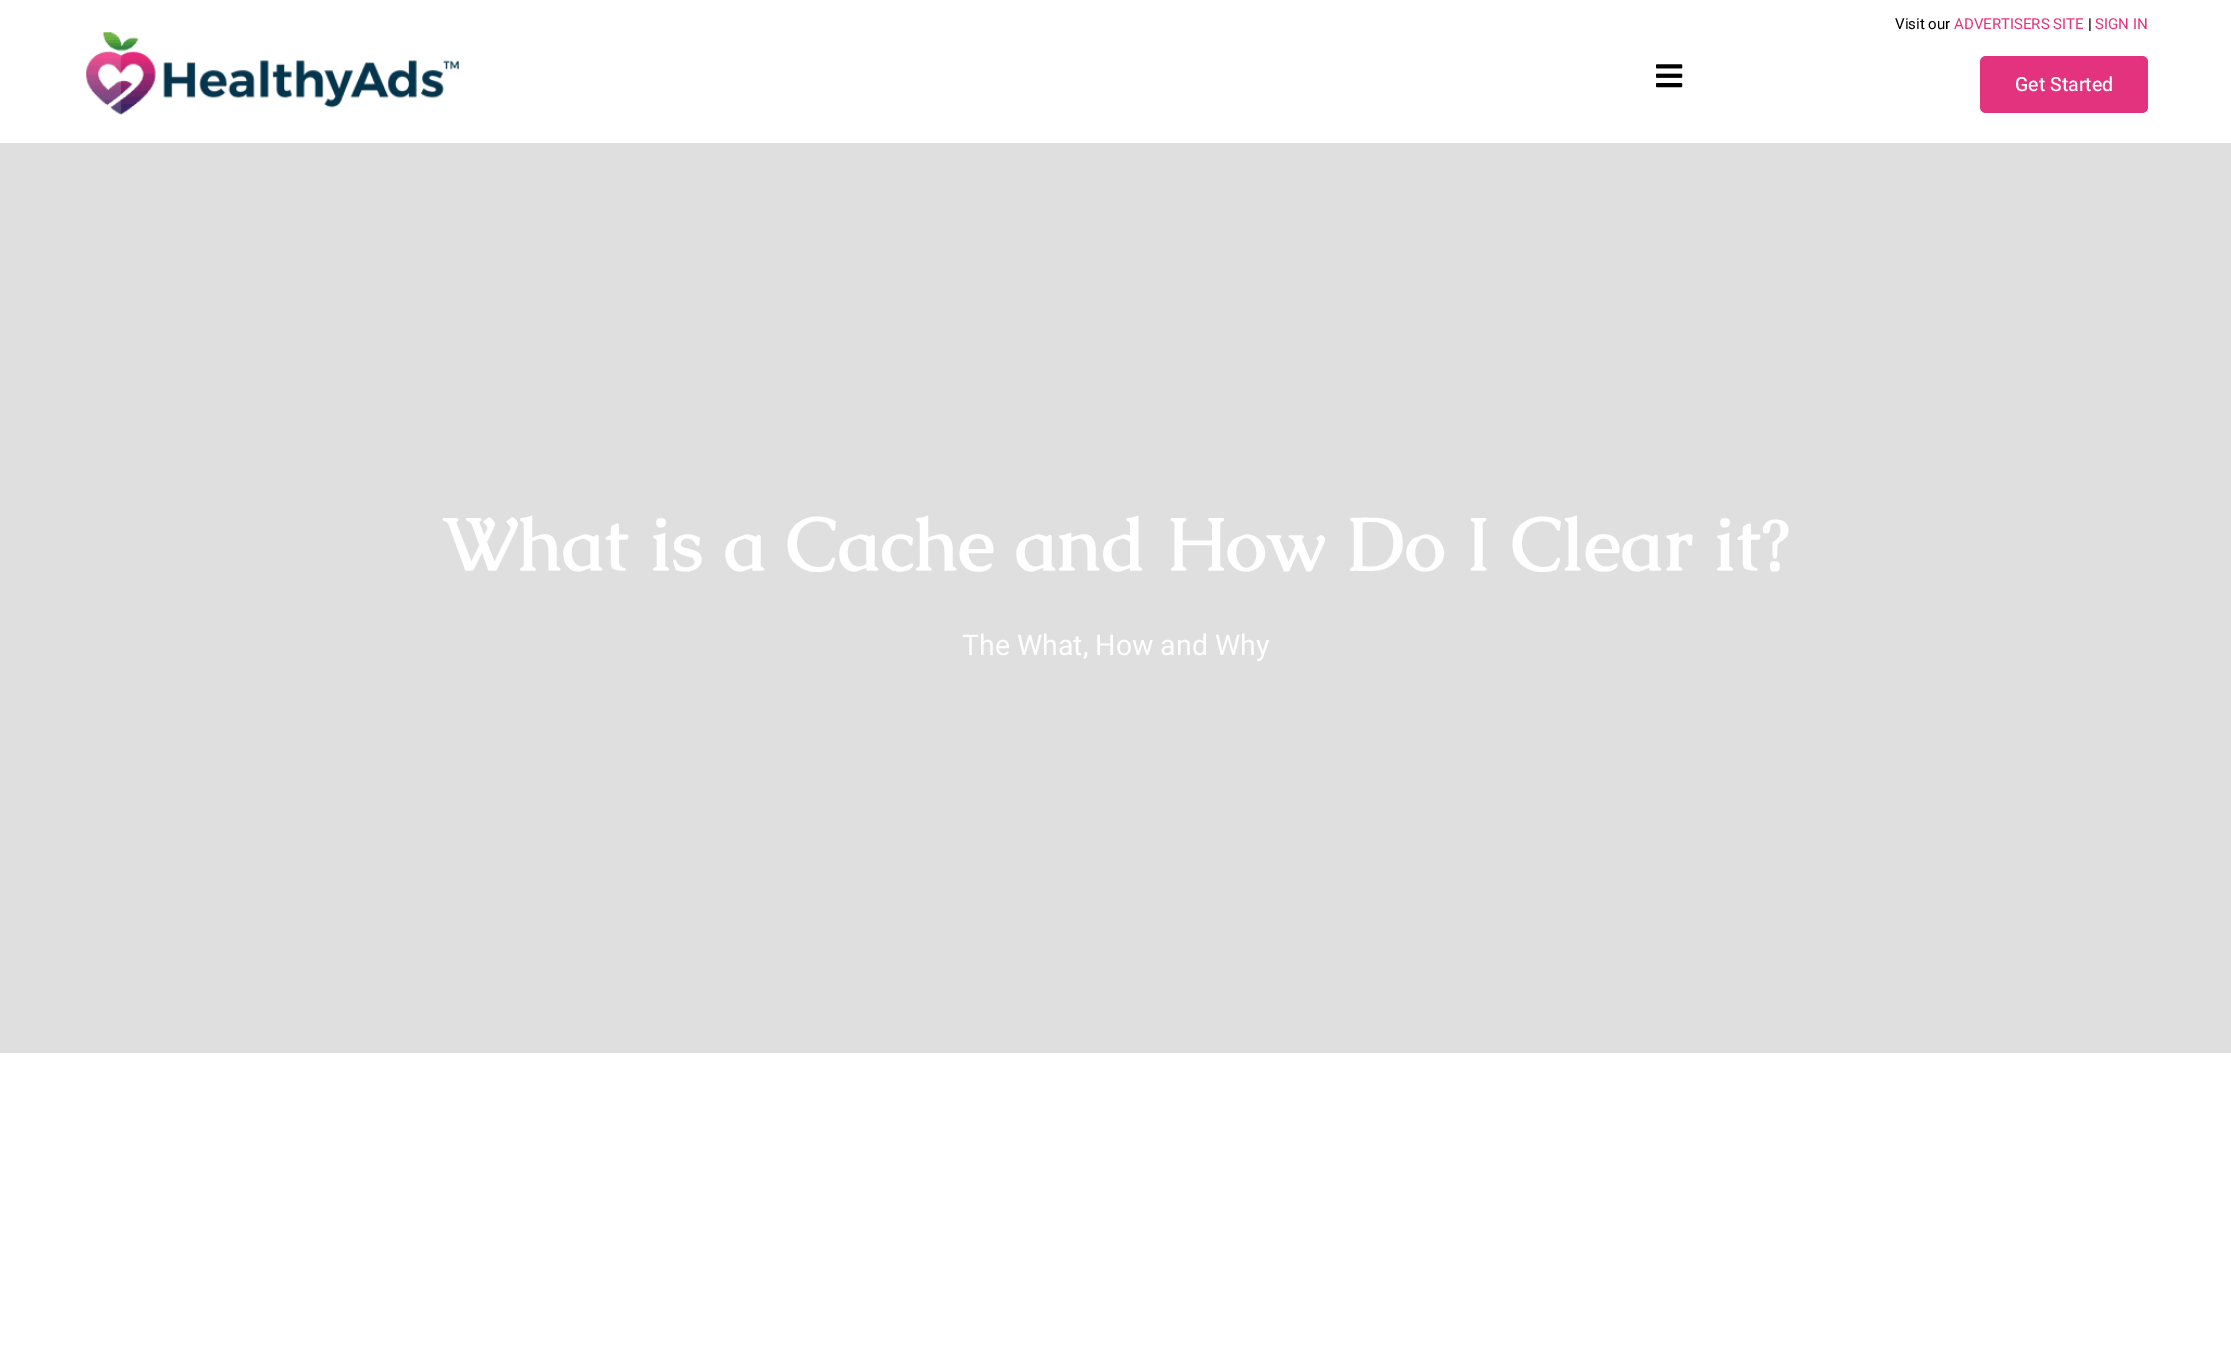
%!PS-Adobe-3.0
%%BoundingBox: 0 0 2231 1354
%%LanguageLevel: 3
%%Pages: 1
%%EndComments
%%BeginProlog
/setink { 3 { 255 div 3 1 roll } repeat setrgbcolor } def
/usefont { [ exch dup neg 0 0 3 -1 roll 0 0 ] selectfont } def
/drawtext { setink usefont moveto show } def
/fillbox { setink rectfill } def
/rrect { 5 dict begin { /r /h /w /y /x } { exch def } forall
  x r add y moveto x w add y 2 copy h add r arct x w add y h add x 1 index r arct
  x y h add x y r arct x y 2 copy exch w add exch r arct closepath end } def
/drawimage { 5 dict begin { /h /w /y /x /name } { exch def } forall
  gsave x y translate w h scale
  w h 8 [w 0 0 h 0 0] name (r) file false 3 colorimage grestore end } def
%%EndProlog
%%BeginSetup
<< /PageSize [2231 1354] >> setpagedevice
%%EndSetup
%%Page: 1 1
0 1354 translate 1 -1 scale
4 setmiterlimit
0 0 2231 1354 255 255 255 fillbox
(Visit our) 1895 29 /Heebo-Regular 15 0 0 0 drawtext
(ADVERTISERS SITE) 1954 29 /Heebo-Regular 15 227 51 127 drawtext
(|) 2088 29 /Heebo-Regular 15 0 0 0 drawtext
(SIGN IN) 2095 29 /Heebo-Regular 15 227 51 127 drawtext
(assets/img1.rgb) 86 32 373 83 drawimage
(assets/img2.rgb) 1656 64 27 24 drawimage
1980 56 168 57 6 rrect fill
(Get Started) 2015 91 /Heebo-Medium 19.5 255 255 255 drawtext
0 143 2231 910 223 223 223 fillbox
(What is a Cache and How Do I Clear it?) 443 570 /Caudex-Bold 75 255 255 255 drawtext
(The What, How and Why) 962 655 /Heebo-Regular 28.5 255 255 255 drawtext
showpage
%%EOF
